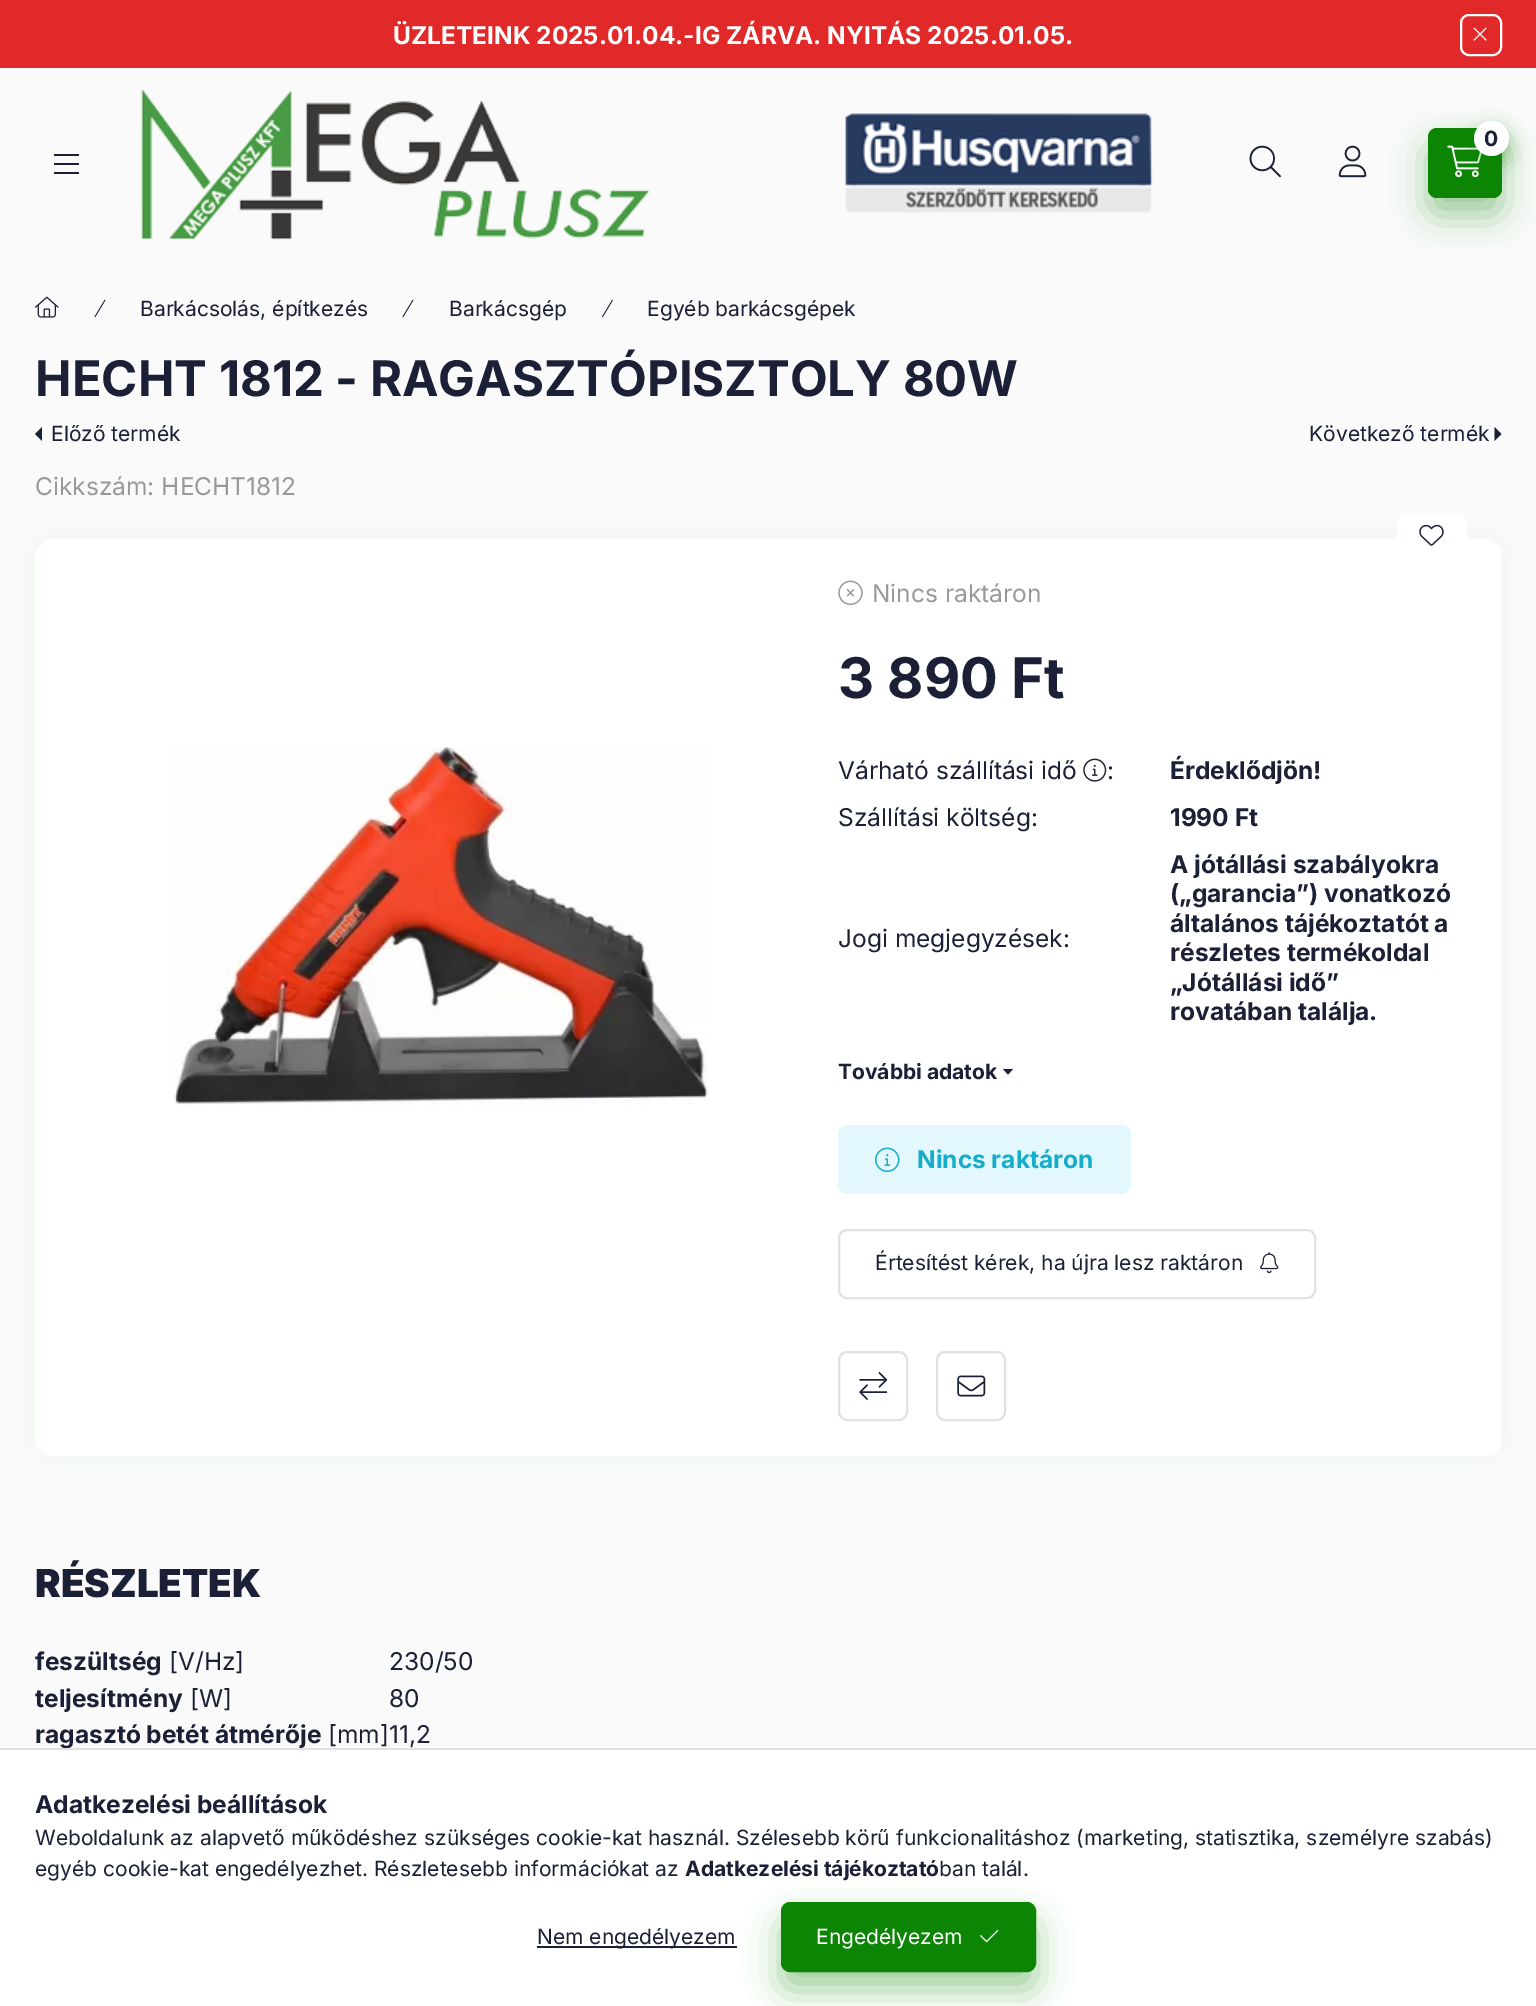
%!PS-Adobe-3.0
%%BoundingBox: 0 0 1536 2006
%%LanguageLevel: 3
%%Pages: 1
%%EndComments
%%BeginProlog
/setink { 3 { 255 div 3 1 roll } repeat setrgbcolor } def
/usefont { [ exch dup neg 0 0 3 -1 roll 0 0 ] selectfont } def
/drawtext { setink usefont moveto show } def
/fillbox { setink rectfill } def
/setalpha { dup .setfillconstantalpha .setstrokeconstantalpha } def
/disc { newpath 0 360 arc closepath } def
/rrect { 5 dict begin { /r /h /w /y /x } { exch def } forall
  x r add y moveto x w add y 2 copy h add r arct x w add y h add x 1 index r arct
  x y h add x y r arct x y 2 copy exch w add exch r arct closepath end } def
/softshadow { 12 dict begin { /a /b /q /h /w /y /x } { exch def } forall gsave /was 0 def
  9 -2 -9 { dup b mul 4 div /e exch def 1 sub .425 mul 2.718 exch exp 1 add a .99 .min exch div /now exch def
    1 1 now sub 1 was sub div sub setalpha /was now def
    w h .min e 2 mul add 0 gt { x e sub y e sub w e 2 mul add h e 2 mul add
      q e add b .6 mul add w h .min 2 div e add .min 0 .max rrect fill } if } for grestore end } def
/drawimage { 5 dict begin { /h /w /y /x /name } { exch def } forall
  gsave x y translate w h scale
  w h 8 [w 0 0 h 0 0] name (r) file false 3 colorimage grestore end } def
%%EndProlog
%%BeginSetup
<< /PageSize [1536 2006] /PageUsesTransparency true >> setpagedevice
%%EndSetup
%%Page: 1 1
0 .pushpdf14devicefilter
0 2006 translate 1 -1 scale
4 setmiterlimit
0 0 1536 2006 250 250 250 fillbox
0 0 1536 68 226 41 41 fillbox
(ÜZLETEINK 2025.01.04.-IG ZÁRVA. NYITÁS 2025.01.05.) 393 44 /Inter-Bold 24.5 255 255 255 drawtext
2 setlinewidth
1461 15 40 40 8 rrect stroke
(assets/img1.rgb) 1473 27 14 14 drawimage
54 154 25 2 27 32 54 fillbox
54 163 25 2 27 32 54 fillbox
54 172 25 2 27 32 54 fillbox
(assets/img2.rgb) 140 88 510 152 drawimage
(assets/img3.rgb) 845 113 308 100 drawimage
12 133 5 setink
1428 145 74 70 9 17.5 0.4 softshadow
1428 128 74 70 9 rrect fill
(assets/img4.rgb) 1447 145 35 33 drawimage
1474 130 35 35 17.5 9 0.4 softshadow
255 255 255 setink
1491.5 138.5 17.5 disc fill
(0) 1484 146 /Inter-Bold 21 27 32 54 drawtext
(assets/img5.rgb) 1249 145 32 33 drawimage
(assets/img6.rgb) 1338 145 29 33 drawimage
(assets/img7.rgb) 35 296 24 22 drawimage
(assets/img8.rgb) 94 299 12 19 drawimage
(Barkácsolás, építkezés) 140 316 /Inter-Regular 21 27 32 54 drawtext
(assets/img8.rgb) 402 299 12 19 drawimage
(Barkácsgép) 449 316 /Inter-Regular 21 27 32 54 drawtext
(assets/img9.rgb) 602 299 11 19 drawimage
(Egyéb barkácsgépek) 647 316 /Inter-Regular 21 27 32 54 drawtext
(HECHT 1812 - RAGASZTÓPISZTOLY 80W) 35 396 /Inter-Bold 49 27 32 54 drawtext
42 441 moveto 42 427 lineto 35 434 lineto closepath fill
(Előző termék) 51 441 /Inter-Regular 21 27 32 54 drawtext
(Következő termék) 1309 441 /Inter-Regular 21 27 32 54 drawtext
1494.5 441 moveto 1494.5 427 lineto 1501.5 434 lineto closepath fill
(Cikkszám: HECHT1812) 35 495 /Inter-Regular 24.5 153 153 153 drawtext
12 133 5 setink
35 539 1467 917 18 17.5 0.05 softshadow
255 255 255 setink
35 539 1467 917 18 rrect fill
1397 515 70 42 9 rrect fill
(assets/img10.rgb) 1419 524 25 22 drawimage
(assets/img11.rgb) 171 747 537 358 drawimage
(assets/img12.rgb) 838 580 25 26 drawimage
(Nincs raktáron) 872 602 /Inter-Regular 24.5 153 153 153 drawtext
(3 890 Ft) 838 698 /Inter-Bold 56 27 32 54 drawtext
(Várható szállítási idő) 838 779 /Inter-Regular 24.5 27 32 54 drawtext
(assets/img13.rgb) 1083 758 24 24 drawimage
(:) 1107 779 /Inter-Regular 24.5 27 32 54 drawtext
(Érdeklődjön!) 1170 779 /Inter-Bold 24.5 27 32 54 drawtext
(Szállítási költség:) 838 826 /Inter-Regular 24.5 27 32 54 drawtext
(1990 Ft) 1170 826 /Inter-Bold 24.5 27 32 54 drawtext
(Jogi megjegyzések:) 838 947 /Inter-Regular 24.5 27 32 54 drawtext
(A jótállási szabályokra) 1170 873 /Inter-Bold 24.5 27 32 54 drawtext
(\(„garancia”\) vonatkozó) 1170 902 /Inter-Bold 24.5 27 32 54 drawtext
(általános tájékoztatót a) 1170 932 /Inter-Bold 24.5 27 32 54 drawtext
(részletes termékoldal) 1170 961 /Inter-Bold 24.5 27 32 54 drawtext
(„Jótállási idő”) 1170 991 /Inter-Bold 24.5 27 32 54 drawtext
(rovatában találja.) 1170 1020 /Inter-Bold 24.5 27 32 54 drawtext
(További adatok) 838 1079 /Inter-Bold 21 27 32 54 drawtext
1003 1069 moveto 1013 1069 lineto 1008 1074.5 lineto closepath fill
227 248 252 setink
838 1125 293 69 9 rrect fill
(assets/img14.rgb) 875 1147 25 26 drawimage
(Nincs raktáron) 917 1168 /Inter-Bold 24.5 22 173 202 drawtext
225 225 225 setink
839 1230 476 68 8 rrect stroke
(Értesítést kérek, ha újra lesz raktáron) 875 1270 /Inter-Regular 21 27 32 54 drawtext
(assets/img15.rgb) 1260 1252 19 22 drawimage
225 225 225 setink
839 1352 68 68 8 rrect stroke
(assets/img16.rgb) 859 1372 29 28 drawimage
937 1352 68 68 8 rrect stroke
(assets/img17.rgb) 957 1375 29 22 drawimage
(RÉSZLETEK) 35 1597 /Inter-Black 38.5 27 32 54 drawtext
(feszültség) 35 1670 /Inter-Bold 24.5 27 32 54 drawtext
([V/Hz]) 169 1670 /Inter-Regular 24.5 27 32 54 drawtext
(230/50) 389 1670 /Inter-Regular 24.5 27 32 54 drawtext
(teljesítmény) 35 1707 /Inter-Bold 24.5 27 32 54 drawtext
([W]) 190 1707 /Inter-Regular 24.5 27 32 54 drawtext
(80) 389 1707 /Inter-Regular 24.5 27 32 54 drawtext
(ragasztó betét átmérője) 35 1743 /Inter-Bold 24.5 27 32 54 drawtext
([mm]11,2) 328 1743 /Inter-Regular 24.5 27 32 54 drawtext
0 1750 1536 256 255 255 255 fillbox
0 1748 1536 2 225 225 225 fillbox
(Adatkezelési beállítások) 35 1813 /Inter-Bold 24.5 27 32 54 drawtext
(Weboldalunk az alapvető működéshez szükséges cookie-kat használ. Szélesebb körű funkcionalitáshoz \(marketing, statisztika, személyre szabás\)) 35 1845 /Inter-Regular 21 27 32 54 drawtext
(egyéb cookie-kat engedélyezhet. Részletesebb információkat az) 35 1876 /Inter-Regular 21 27 32 54 drawtext
(Adatkezelési tájékoztató) 685 1876 /Inter-Bold 21 27 32 54 drawtext
(ban talál.) 939 1876 /Inter-Regular 21 27 32 54 drawtext
537 1946 200 2 27 32 54 fillbox
(Nem engedélyezem) 537 1944 /Inter-Regular 21 27 32 54 drawtext
12 133 5 setink
781 1920 255 70 9 17.5 0.4 softshadow
782 1903 253 68 8 rrect gsave fill grestore
stroke
(Engedélyezem) 816 1944 /Inter-Regular 21 255 255 255 drawtext
(assets/img18.rgb) 980 1929 19 14 drawimage
.poppdf14devicefilter showpage
%%EOF
